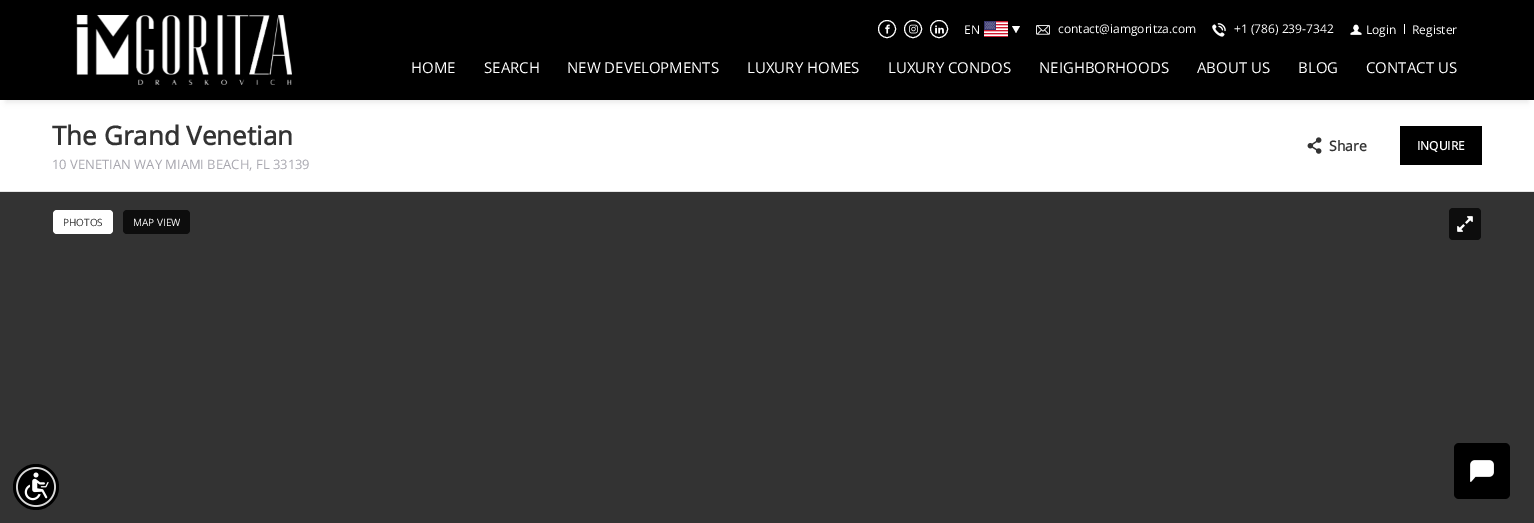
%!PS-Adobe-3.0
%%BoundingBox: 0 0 1534 523
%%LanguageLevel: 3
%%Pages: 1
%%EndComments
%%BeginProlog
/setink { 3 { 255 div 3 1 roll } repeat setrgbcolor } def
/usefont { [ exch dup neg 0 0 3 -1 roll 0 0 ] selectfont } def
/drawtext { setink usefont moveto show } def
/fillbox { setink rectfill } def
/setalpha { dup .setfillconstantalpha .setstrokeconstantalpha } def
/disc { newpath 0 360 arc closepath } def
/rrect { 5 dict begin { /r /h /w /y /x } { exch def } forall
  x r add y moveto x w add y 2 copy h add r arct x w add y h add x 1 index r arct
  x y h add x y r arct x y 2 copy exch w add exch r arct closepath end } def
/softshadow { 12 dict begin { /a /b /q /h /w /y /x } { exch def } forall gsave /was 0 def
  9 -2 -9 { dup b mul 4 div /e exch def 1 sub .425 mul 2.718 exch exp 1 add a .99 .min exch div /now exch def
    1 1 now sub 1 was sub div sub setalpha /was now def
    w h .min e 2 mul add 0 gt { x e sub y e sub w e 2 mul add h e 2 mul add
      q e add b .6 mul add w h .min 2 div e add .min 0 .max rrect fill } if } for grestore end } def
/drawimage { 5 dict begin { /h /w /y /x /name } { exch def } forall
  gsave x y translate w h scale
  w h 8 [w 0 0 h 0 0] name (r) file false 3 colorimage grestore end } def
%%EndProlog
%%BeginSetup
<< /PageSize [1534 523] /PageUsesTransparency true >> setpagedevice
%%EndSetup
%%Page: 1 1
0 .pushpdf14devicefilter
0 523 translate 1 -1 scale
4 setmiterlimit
0 0 1534 523 255 255 255 fillbox
0 0 0 setink
6 14 1522 88 0 3 0.1 softshadow
0 0 1534 100 0 0 0 fillbox
255 255 255 setink
887 29 8.5 disc stroke
(assets/img1.rgb) 885 24 5 10 drawimage
913 29 8.5 disc stroke
(assets/img2.rgb) 909 24 9 10 drawimage
939 29 8.5 disc stroke
(assets/img3.rgb) 935 25 9 9 drawimage
(EN) 964 34 /OpenSans-Regular 12 255 255 255 drawtext
(assets/img4.rgb) 984 21 24 16 drawimage
1012 26 moveto 1020 26 lineto 1016 33 lineto closepath fill
(assets/img5.rgb) 1036 25 14 10 drawimage
(contact@iamgoritza.com) 1058 33 /OpenSans-Regular 12 255 255 255 drawtext
(assets/img6.rgb) 1212 23 14 14 drawimage
(+1 \(786\) 239-7342) 1234 33 /OpenSans-Regular 12 255 255 255 drawtext
(assets/img7.rgb) 1350 24 12 11 drawimage
(Login) 1366 34 /OpenSans-Regular 12 255 255 255 drawtext
1404 24 1 10 255 255 255 fillbox
(Register) 1412 34 /OpenSans-Regular 12 255 255 255 drawtext
(assets/img8.rgb) 76 15 216 70 drawimage
(HOME) 411 73 /OpenSans-Regular 15 255 255 255 drawtext
(SEARCH) 484 73 /OpenSans-Regular 15 255 255 255 drawtext
(NEW DEVELOPMENTS) 567 73 /OpenSans-Regular 15 255 255 255 drawtext
(LUXURY HOMES) 747 73 /OpenSans-Regular 15 255 255 255 drawtext
(LUXURY CONDOS) 888 73 /OpenSans-Regular 15 255 255 255 drawtext
(NEIGHBORHOODS) 1039 73 /OpenSans-Regular 15 255 255 255 drawtext
(ABOUT US) 1197 73 /OpenSans-Regular 15 255 255 255 drawtext
(BLOG) 1298 73 /OpenSans-Regular 15 255 255 255 drawtext
(CONTACT US) 1366 73 /OpenSans-Regular 15 255 255 255 drawtext
0 191 1534 1 229 229 229 fillbox
(The Grand Venetian) 52 145 /OpenSans-Bold 26 51 51 51 drawtext
(10 VENETIAN WAY MIAMI BEACH, FL 33139) 52 169 /OpenSans-Regular 13 167 166 174 drawtext
(assets/img9.rgb) 1307 137 15 17 drawimage
(Share) 1329 151 /OpenSans-Bold 14 51 51 51 drawtext
1400 126 82 39 0 0 0 fillbox
(INQUIRE) 1417 150 /OpenSans-Bold 12 255 255 255 drawtext
0 192 1534 331 51 51 51 fillbox
255 255 255 setink
53 210 60 24 4 rrect fill
(PHOTOS) 63 226 /OpenSans-Regular 10 51 51 51 drawtext
13 13 13 setink
123 210 67 24 4 rrect fill
(MAP VIEW) 133 226 /OpenSans-Regular 10 255 255 255 drawtext
13 13 13 setink
1449 208 32 32 4 rrect fill
(assets/img10.rgb) 1457 216 16 16 drawimage
0 0 0 setink
36 487 23 disc fill
(assets/img11.rgb) 16 467 40 40 drawimage
1454 443 56 56 5 rrect fill
(assets/img12.rgb) 1470 460 24 22 drawimage
.poppdf14devicefilter showpage
%%EOF
